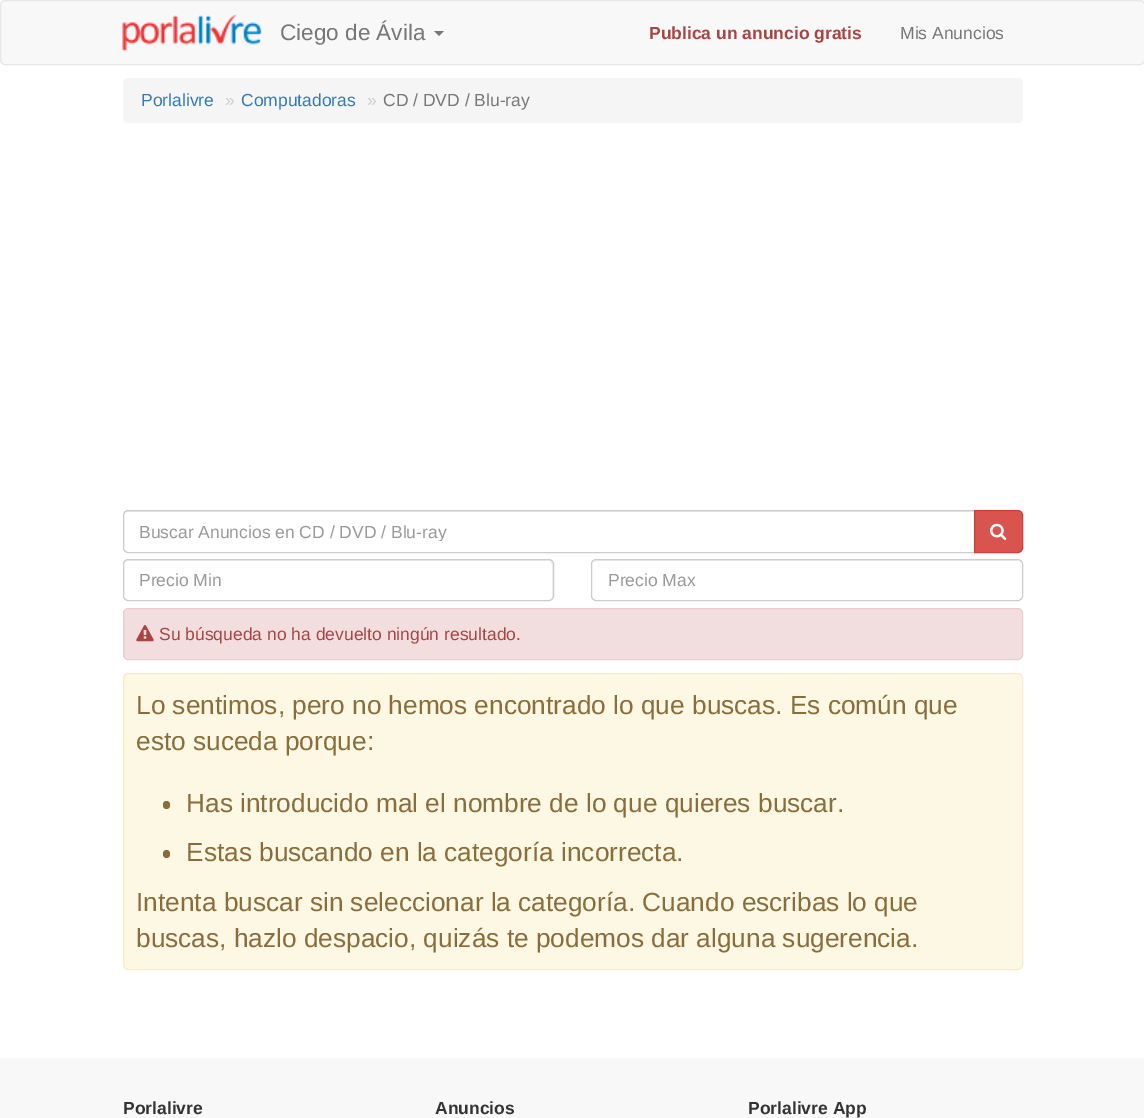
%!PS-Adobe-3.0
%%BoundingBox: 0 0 1144 1118
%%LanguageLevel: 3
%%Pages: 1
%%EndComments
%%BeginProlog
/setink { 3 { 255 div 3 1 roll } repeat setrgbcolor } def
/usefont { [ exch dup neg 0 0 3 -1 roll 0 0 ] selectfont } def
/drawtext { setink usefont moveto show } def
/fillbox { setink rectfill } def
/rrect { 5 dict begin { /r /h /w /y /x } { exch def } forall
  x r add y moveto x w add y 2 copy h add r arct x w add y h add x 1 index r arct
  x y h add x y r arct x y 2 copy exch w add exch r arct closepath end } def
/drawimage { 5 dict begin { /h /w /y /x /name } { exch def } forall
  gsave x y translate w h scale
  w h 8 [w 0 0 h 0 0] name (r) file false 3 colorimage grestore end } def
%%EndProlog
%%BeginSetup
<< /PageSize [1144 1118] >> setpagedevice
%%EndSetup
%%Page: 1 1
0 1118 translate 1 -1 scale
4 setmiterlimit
0 0 1144 1118 255 255 255 fillbox
248 248 248 setink
0.5 0.5 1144 64 4.5 rrect gsave fill grestore
231 231 231 setink
stroke
(assets/img1.rgb) 122 14 140 38 drawimage
(Ciego de Ávila) 280 40 /LiberationSans-Regular 22.5 119 119 119 drawtext
434 31 moveto 444 31 lineto 439 36 lineto closepath fill
(Publica un anuncio gratis) 649 39 /LiberationSans-Bold 17.5 169 68 66 drawtext
(Mis Anuncios) 900 39 /LiberationSans-Regular 17.5 119 119 119 drawtext
245 245 245 setink
123 78 900 45 5 rrect fill
(Porlalivre) 141 106 /LiberationSans-Regular 17.5 51 122 183 drawtext
(») 225 106 /LiberationSans-Regular 17.5 204 204 204 drawtext
(Computadoras) 241 106 /LiberationSans-Regular 17.5 51 122 183 drawtext
(») 367 106 /LiberationSans-Regular 17.5 204 204 204 drawtext
(CD / DVD / Blu-ray) 383 106 /LiberationSans-Regular 17.5 119 119 119 drawtext
236 236 236 setink
128 512 moveto 974 512 lineto 974 511 lineto 128 511 lineto 125 511 124 513 124 516 curveto 124 514 125 512 128 512 curveto closepath fill
204 204 204 setink
128 510.5 moveto 974.5 510.5 lineto 974.5 552.5 lineto 128 552.5 lineto 125.5 552.5 123.5 550.5 123.5 548 curveto 123.5 515 lineto 123.5 512.5 125.5 510.5 128 510.5 curveto closepath stroke
gsave
139 521 820 20 rectclip
(Buscar Anuncios en CD / DVD / Blu-ray) 139 538 /LiberationSans-Regular 17.5 153 153 153 drawtext
grestore
217 83 79 setink
974.5 510.5 moveto 1018 510.5 lineto 1020.5 510.5 1022.5 512.5 1022.5 515 curveto 1022.5 548 lineto 1022.5 550.5 1020.5 552.5 1018 552.5 curveto 974.5 552.5 lineto closepath gsave fill grestore
212 63 58 setink
stroke
(assets/img2.rgb) 990 523 17 17 drawimage
236 236 236 setink
128 561 moveto 549 561 lineto 551 561 552 563 552 565 curveto 552 599 lineto 553 598 553 597 553 596 curveto 553 564 lineto 553 562 551 560 549 560 curveto 128 560 lineto 126 560 124 562 124 564 curveto 124 565 lineto 124 563 125 561 128 561 curveto closepath fill
204 204 204 setink
123.5 559.5 430 41 4.5 rrect stroke
(Precio Min) 139 586 /LiberationSans-Regular 17.5 153 153 153 drawtext
236 236 236 setink
596 561 moveto 1018 561 lineto 1020 561 1021 563 1021 565 curveto 1021 564 lineto 1021 562 1019 560 1017 560 curveto 597 560 lineto 596 560 594 561 594 562 curveto closepath fill
204 204 204 setink
591.5 559.5 431 41 4.5 rrect stroke
(Precio Max) 608 586 /LiberationSans-Regular 17.5 153 153 153 drawtext
242 222 222 setink
123.5 608.5 899 51 4.5 rrect gsave fill grestore
235 204 209 setink
stroke
(assets/img3.rgb) 136 625 18 17 drawimage
(Su búsqueda no ha devuelto ningún resultado.) 159 640 /LiberationSans-Regular 17.5 169 68 66 drawtext
252 248 227 setink
123.5 673.5 899 296 4.5 rrect gsave fill grestore
250 235 204 setink
stroke
(Lo sentimos, pero no hemos encontrado lo que buscas. Es común que) 136 714 /LiberationSans-Regular 26.25 138 109 59 drawtext
(esto suceda porque:) 136 750 /LiberationSans-Regular 26.25 138 109 59 drawtext
163 801 7 8 3.5 rrect fill
(Has introducido mal el nombre de lo que quieres buscar.) 186 812 /LiberationSans-Regular 26.25 138 109 59 drawtext
163 850 7 8 3.5 rrect fill
(Estas buscando en la categoría incorrecta.) 186 861 /LiberationSans-Regular 26.25 138 109 59 drawtext
(Intenta buscar sin seleccionar la categoría. Cuando escribas lo que) 136 911 /LiberationSans-Regular 26.25 138 109 59 drawtext
(buscas, hazlo despacio, quizás te podemos dar alguna sugerencia.) 136 947 /LiberationSans-Regular 26.25 138 109 59 drawtext
0 1058 1144 60 248 248 248 fillbox
(Porlalivre) 123 1114 /LiberationSans-Bold 17.5 51 51 51 drawtext
(Anuncios) 435 1114 /LiberationSans-Bold 17.5 51 51 51 drawtext
(Porlalivre App) 748 1114 /LiberationSans-Bold 17.5 51 51 51 drawtext
showpage
%%EOF
